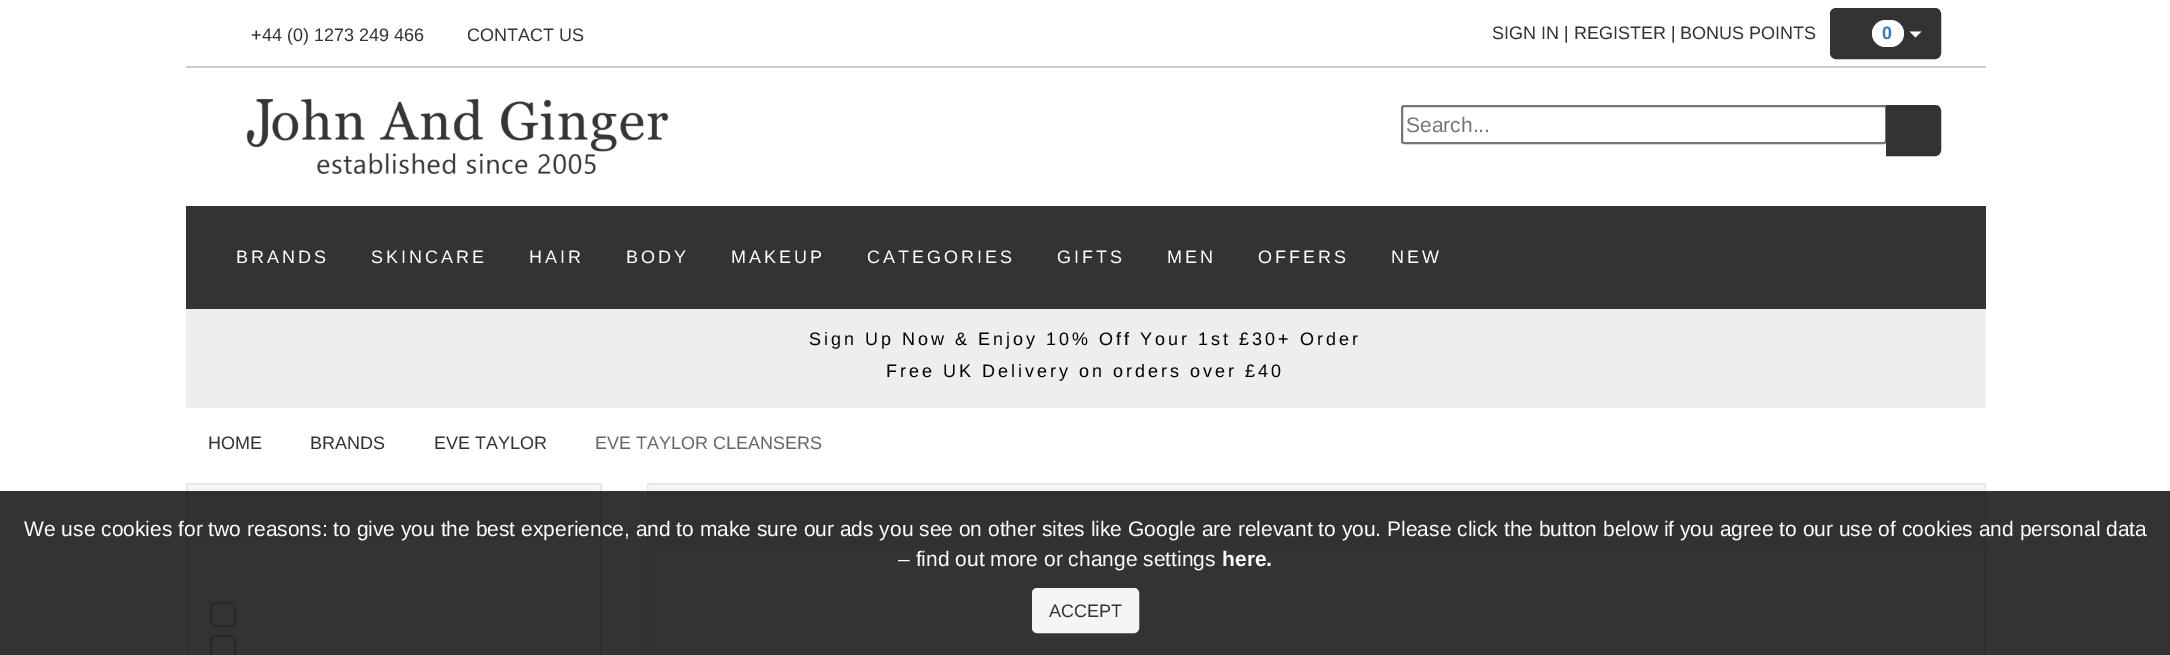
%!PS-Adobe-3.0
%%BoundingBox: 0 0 2170 655
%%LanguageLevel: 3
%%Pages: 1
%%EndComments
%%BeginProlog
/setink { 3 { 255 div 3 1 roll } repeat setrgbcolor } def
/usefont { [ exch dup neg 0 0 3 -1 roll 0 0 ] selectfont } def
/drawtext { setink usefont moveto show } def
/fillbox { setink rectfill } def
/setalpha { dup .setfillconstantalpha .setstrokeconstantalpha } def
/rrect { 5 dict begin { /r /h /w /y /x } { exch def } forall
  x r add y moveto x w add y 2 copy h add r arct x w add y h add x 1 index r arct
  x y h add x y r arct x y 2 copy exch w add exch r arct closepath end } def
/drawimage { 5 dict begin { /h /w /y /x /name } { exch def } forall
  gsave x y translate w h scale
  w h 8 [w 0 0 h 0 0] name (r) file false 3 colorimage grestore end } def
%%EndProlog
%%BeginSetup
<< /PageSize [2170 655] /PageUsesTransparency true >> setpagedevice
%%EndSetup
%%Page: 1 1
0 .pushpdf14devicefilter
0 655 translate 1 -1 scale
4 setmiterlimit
0 0 2170 655 255 255 255 fillbox
186 66 1800 2 204 204 204 fillbox
(+44 \(0\) 1273 249 466) 251 41 /LiberationSans-Regular 18 51 51 51 drawtext
(CONTACT US) 467 41 /LiberationSans-Regular 18 51 51 51 drawtext
(SIGN IN | REGISTER | BONUS POINTS) 1492 39 /LiberationSans-Regular 18 51 51 51 drawtext
1831 9 109 49 5 rrect gsave fill grestore
2 setlinewidth
stroke
255 255 255 setink
1872 20 32 27 13.5 rrect fill
(0) 1882 39 /LiberationSans-Bold 18 51 122 183 drawtext
255 255 255 setink
1909.5 31.5 moveto 1921.5 31.5 lineto 1915.5 37.5 lineto closepath fill
(assets/img1.rgb) 246 99 423 75 drawimage
118 118 118 setink
1402 106 484 37 2 rrect stroke
(Search...) 1406 132 /LiberationSans-Regular 21 117 117 117 drawtext
51 51 51 setink
1887 106 moveto 1935 106 lineto 1938 106 1940 108 1940 111 curveto 1940 150 lineto 1940 153 1938 155 1935 155 curveto 1887 155 lineto closepath gsave fill grestore
stroke
186 206 1800 103 51 51 51 fillbox
/LiberationSans-Regular 18 usefont
255 255 255 setink
236 263 moveto 3 0 (BRANDS) ashow
371 263 moveto 3 0 (SKINCARE) ashow
529 263 moveto 3 0 (HAIR) ashow
626 263 moveto 3 0 (BODY) ashow
731 263 moveto 3 0 (MAKEUP) ashow
867 263 moveto 3 0 (CATEGORIES) ashow
1057 263 moveto 3 0 (GIFTS) ashow
1167 263 moveto 3 0 (MEN) ashow
1258 263 moveto 3 0 (OFFERS) ashow
1391 263 moveto 3 0 (NEW) ashow
186 309 1800 99 238 238 238 fillbox
0 0 0 setink
809 345 moveto 3 0 (Sign Up Now & Enjoy 10% Off Your 1st £30+ Order) ashow
886 377 moveto 3 0 (Free UK Delivery on orders over £40) ashow
(HOME) 208 449 /LiberationSans-Regular 18 51 51 51 drawtext
() 283 449 /FontAwesome-Regular 18 102 102 102 drawtext
(BRANDS) 310 449 /LiberationSans-Regular 18 51 51 51 drawtext
() 406 449 /FontAwesome-Regular 18 102 102 102 drawtext
(EVE TAYLOR) 434 449 /LiberationSans-Regular 18 51 51 51 drawtext
() 568 449 /FontAwesome-Regular 18 102 102 102 drawtext
(EVE TAYLOR CLEANSERS) 595 449 /LiberationSans-Regular 18 102 102 102 drawtext
232 232 232 setink
187 484 414 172 rectstroke
245 245 245 setink
193 485 moveto 595 485 lineto 598 485 600 487 600 490 curveto 600 540 lineto 188 540 lineto 188 490 lineto 188 487 190 485 193 485 curveto closepath fill
204 204 204 setink
211 603 24 23 4 rrect stroke
211 636 24 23 4 rrect stroke
232 232 232 setink
648 484 1337 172 rectstroke
245 245 245 setink
653 485 moveto 1980 485 lineto 1983 485 1985 487 1985 490 curveto 1985 548 lineto 648 548 lineto 648 490 lineto 648 487 650 485 653 485 curveto closepath fill
0.8 setalpha
0 491 2170 164 0 0 0 fillbox
1 setalpha
(We use cookies for two reasons: to give you the best experience, and to make sure our ads you see on other sites like Google are relevant to you. Please click the button below if you agree to our use of cookies and personal data) 24 536 /LiberationSans-Regular 21 255 255 255 drawtext
(– find out more or change settings) 898 566 /LiberationSans-Regular 21 255 255 255 drawtext
(here.) 1222 566 /LiberationSans-Bold 21 255 255 255 drawtext
245 245 245 setink
1033 589 105 43 4 rrect gsave fill grestore
stroke
(ACCEPT) 1049 617 /LiberationSans-Regular 18 51 51 51 drawtext
.poppdf14devicefilter showpage
%%EOF
